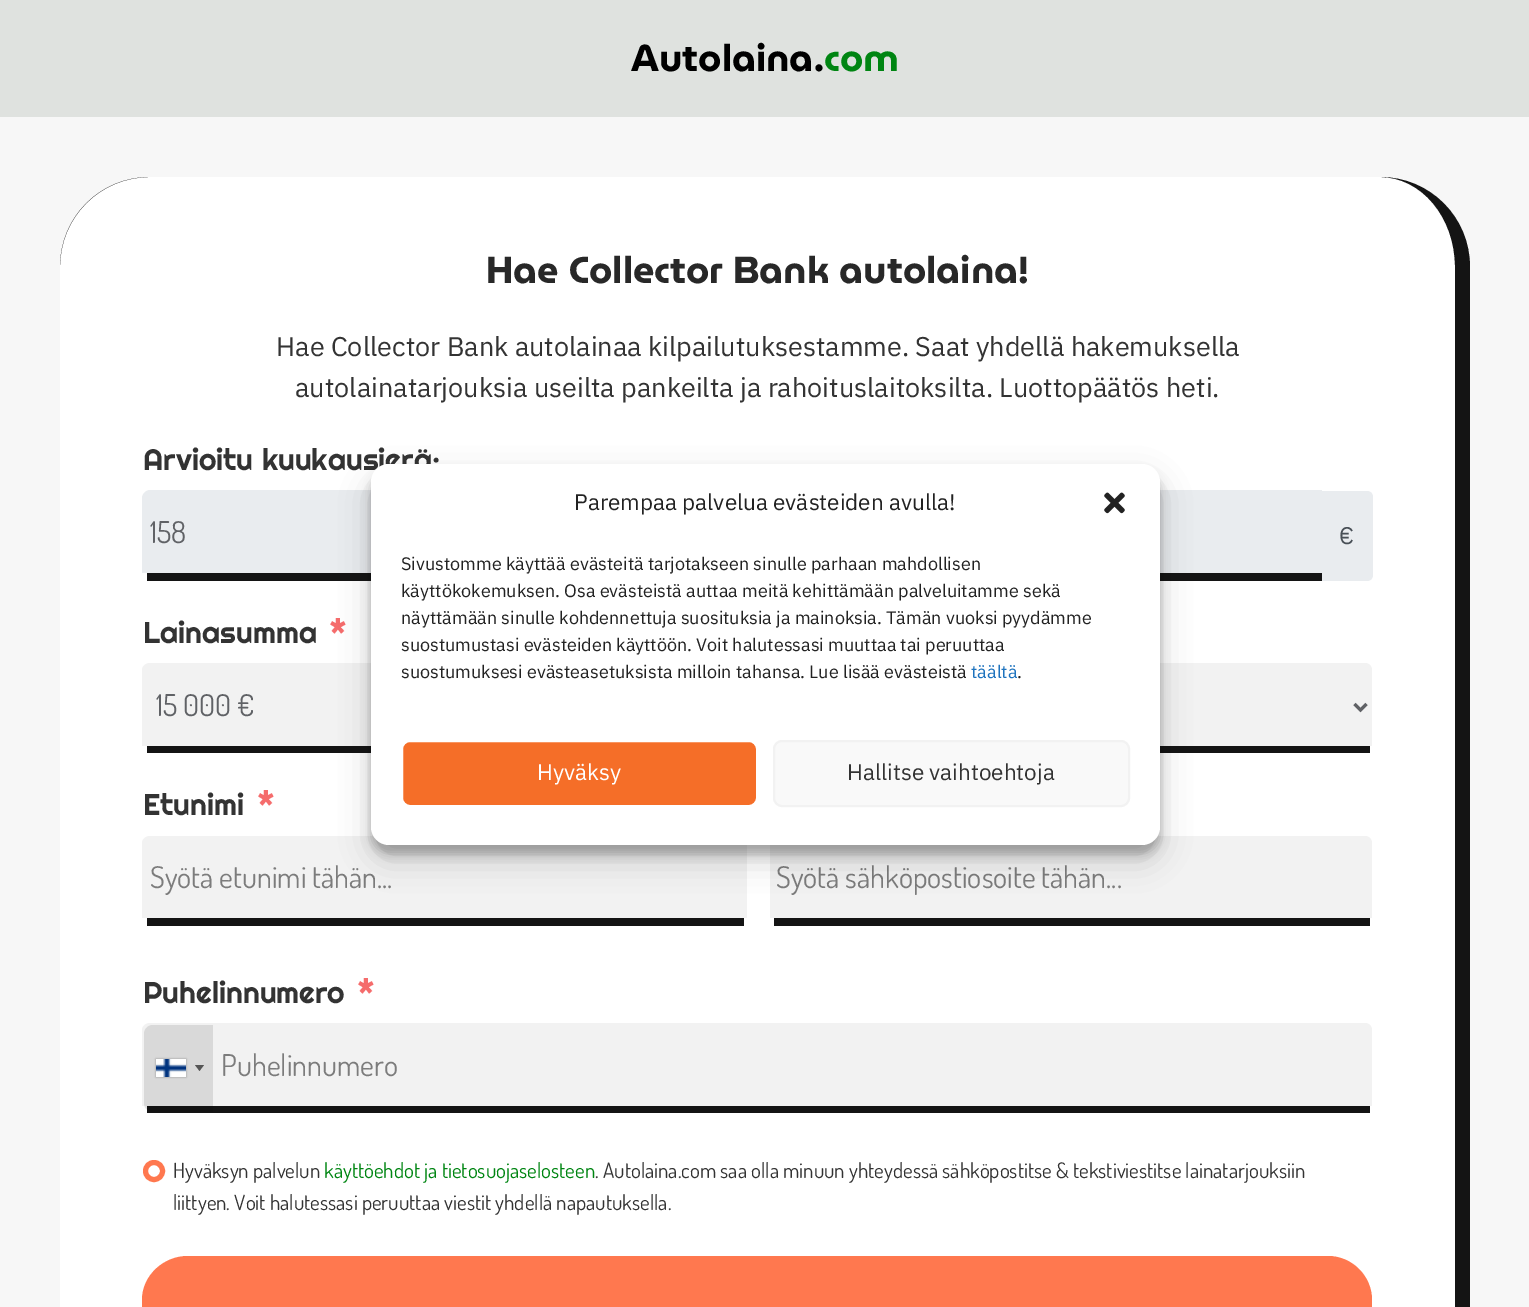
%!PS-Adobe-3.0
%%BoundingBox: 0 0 1529 1307
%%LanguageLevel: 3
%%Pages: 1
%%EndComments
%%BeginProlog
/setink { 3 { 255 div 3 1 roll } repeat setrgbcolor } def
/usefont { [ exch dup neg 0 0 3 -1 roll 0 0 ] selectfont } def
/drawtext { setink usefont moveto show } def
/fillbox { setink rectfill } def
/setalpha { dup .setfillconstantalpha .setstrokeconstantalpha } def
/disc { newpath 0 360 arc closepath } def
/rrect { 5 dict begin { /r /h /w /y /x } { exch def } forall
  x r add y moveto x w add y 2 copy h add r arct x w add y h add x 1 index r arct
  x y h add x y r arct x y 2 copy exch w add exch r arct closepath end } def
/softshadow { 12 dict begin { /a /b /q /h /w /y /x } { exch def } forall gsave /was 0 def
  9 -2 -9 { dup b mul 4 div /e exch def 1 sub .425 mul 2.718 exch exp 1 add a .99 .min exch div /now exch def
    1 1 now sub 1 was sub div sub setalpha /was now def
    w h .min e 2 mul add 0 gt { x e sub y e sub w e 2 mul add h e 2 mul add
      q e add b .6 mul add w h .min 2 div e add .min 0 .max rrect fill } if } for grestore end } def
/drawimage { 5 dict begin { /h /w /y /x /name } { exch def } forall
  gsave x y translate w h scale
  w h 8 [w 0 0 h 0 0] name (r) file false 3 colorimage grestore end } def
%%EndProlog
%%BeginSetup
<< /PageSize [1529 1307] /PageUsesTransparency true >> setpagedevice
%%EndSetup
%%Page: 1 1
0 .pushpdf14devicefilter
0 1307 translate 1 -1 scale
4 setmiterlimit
0 0 1529 1307 247 247 247 fillbox
0 0 1529 117 223 226 223 fillbox
(Autolaina.) 631 71 /MuseoModerno-Thin 37.5 0 0 0 drawtext
(com) 824 71 /MuseoModerno-Thin 37.5 0 133 18 drawtext
255 255 255 setink
150 177 moveto 1380 177 lineto 1421 177 1455 217 1455 267 curveto 1455 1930 lineto 1455 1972 1421 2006 1380 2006 curveto 150 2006 lineto 100 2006 60 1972 60 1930 curveto 60 267 lineto 60 217 100 177 150 177 curveto closepath fill
20 20 20 setink
150 177 moveto 1380 177 lineto 1430 177 1470 217 1470 267 curveto 1470 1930 lineto 1470 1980 1430 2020 1380 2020 curveto 150 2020 lineto 100 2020 60 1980 60 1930 curveto 60 267 lineto 60 217 100 177 150 177 curveto closepath 150 177 moveto 1380 177 lineto 1421 177 1455 217 1455 267 curveto 1455 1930 lineto 1455 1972 1421 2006 1380 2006 curveto 150 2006 lineto 100 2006 60 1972 60 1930 curveto 60 267 lineto 60 217 100 177 150 177 curveto closepath eofill
(Hae Collector Bank autolaina!) 486 283 /MuseoModerno-Thin 37.5 40 40 40 drawtext
(Hae Collector Bank autolainaa kilpailutuksestamme. Saat yhdellä hakemuksella) 276 356 /IBMPlexSans-Regular 27 51 51 51 drawtext
(autolainatarjouksia useilta pankeilta ja rahoituslaitoksilta. Luottopäätös heti.) 295 397 /IBMPlexSans-Regular 27 51 51 51 drawtext
(Arvioitu kuukausierä:) 143 470 /Righteous-Regular 30 51 51 51 drawtext
233 236 239 setink
150 490 moveto 1322 490 lineto 1322 573 lineto 142 573 lineto 142 498 lineto 142 494 146 490 150 490 curveto closepath fill
147 573 1175 8 20 20 20 fillbox
(158) 150 543 /Dosis-Regular 30 96 98 102 drawtext
233 236 239 setink
1322 491 moveto 1367 491 lineto 1370.5 491 1373 493.5 1373 497 curveto 1373 575 lineto 1373 578.5 1370.5 581 1367 581 curveto 1322 581 lineto closepath fill
(€) 1339 544 /IBMPlexSans-Regular 24 73 80 87 drawtext
(Lainasumma) 143 643 /Righteous-Regular 30 51 51 51 drawtext
(*) 329 643 /Righteous-Regular 30 245 108 108 drawtext
242 242 242 setink
150 663 moveto 740 663 lineto 744 663 747 666 747 670 curveto 747 746 lineto 142 746 lineto 142 670 lineto 142 666 146 663 150 663 curveto closepath fill
147 746 224 7 20 20 20 fillbox
(15 000 €) 156 716 /Dosis-Regular 30 96 98 102 drawtext
242 242 242 setink
777 663 moveto 1365 663 lineto 1369 663 1372 666 1372 670 curveto 1372 746 lineto 770 746 lineto 770 670 lineto 770 666 773 663 777 663 curveto closepath fill
1160 746 210 7 20 20 20 fillbox
96 98 102 setink
3 setlinewidth
1354.5 704 moveto 1360.5 710 lineto 1366.5 704 lineto stroke
(Etunimi) 143 815 /Righteous-Regular 30 51 51 51 drawtext
(*) 257 815 /Righteous-Regular 30 245 108 108 drawtext
242 242 242 setink
150 836 moveto 740 836 lineto 744 836 747 839 747 843 curveto 747 918 lineto 142 918 lineto 142 843 lineto 142 839 146 836 150 836 curveto closepath fill
147 918 597 8 20 20 20 fillbox
(Syötä etunimi tähän...) 150 888 /Dosis-Regular 30 124 124 124 drawtext
242 242 242 setink
777 836 moveto 1365 836 lineto 1369 836 1372 839 1372 843 curveto 1372 918 lineto 770 918 lineto 770 843 lineto 770 839 773 836 777 836 curveto closepath fill
774 918 596 8 20 20 20 fillbox
(Syötä sähköpostiosoite tähän...) 776 888 /Dosis-Regular 30 124 124 124 drawtext
(Puhelinnumero) 143 1003 /Righteous-Regular 30 51 51 51 drawtext
(*) 357 1003 /Righteous-Regular 30 245 108 108 drawtext
242 242 242 setink
150 1023 moveto 1365 1023 lineto 1369 1023 1372 1026 1372 1030 curveto 1372 1106 lineto 142 1106 lineto 142 1030 lineto 142 1026 146 1023 150 1023 curveto closepath fill
147 1106 1223 7 20 20 20 fillbox
0.1 setalpha
0 0 0 setink
153 1025 moveto 213 1025 lineto 213 1112 lineto 153 1112 lineto 148 1112 144 1108 144 1103 curveto 144 1034 lineto 144 1029 148 1025 153 1025 curveto closepath fill
1 setalpha
136 136 136 setink
156 1059 30 18 0 1 1 softshadow
(assets/img1.rgb) 156 1059 30 18 drawimage
85 85 85 setink
195 1065 moveto 204 1065 lineto 199.5 1071 lineto closepath fill
(Puhelinnumero) 221 1076 /Dosis-Regular 30 124 124 124 drawtext
255 120 79 setink
5 setlinewidth
154 1171 8.5 disc stroke
(Hyväksyn palvelun) 173 1178 /Dosis-Regular 21 51 51 51 drawtext
(käyttöehdot ja tietosuojaselosteen) 324 1178 /Dosis-Regular 21 0 133 18 drawtext
(. Autolaina.com saa olla minuun yhteydessä sähköpostitse & tekstiviestitse lainatarjouksiin) 595 1178 /Dosis-Regular 21 51 51 51 drawtext
(liittyen. Voit halutessasi peruuttaa viestit yhdellä napautuksella.) 173 1210 /Dosis-Regular 21 51 51 51 drawtext
255 120 79 setink
188 1256 moveto 1328 1256 lineto 1352 1256 1372 1276 1372 1300 curveto 1372 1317 lineto 1372 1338 1352 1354 1328 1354 curveto 188 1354 lineto 163 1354 142 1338 142 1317 curveto 142 1300 lineto 142 1276 163 1256 188 1256 curveto closepath fill
0 0 0 setink
371 473 789 381 18 4.5 0.23 softshadow
371 479 789 381 18 15 0.19 softshadow
255 255 255 setink
371 464 789 381 18 rrect fill
(Parempaa palvelua evästeiden avulla!) 574 510 /IBMPlexSans-Regular 22.5 34 34 34 drawtext
(assets/img2.rgb) 1104 492 21 22 drawimage
(Sivustomme käyttää evästeitä tarjotakseen sinulle parhaan mahdollisen) 401 570 /IBMPlexSans-Regular 18 34 34 34 drawtext
(käyttökokemuksen. Osa evästeistä auttaa meitä kehittämään palveluitamme sekä) 401 597 /IBMPlexSans-Regular 18 34 34 34 drawtext
(näyttämään sinulle kohdennettuja suosituksia ja mainoksia. Tämän vuoksi pyydämme) 401 624 /IBMPlexSans-Regular 18 34 34 34 drawtext
(suostumustasi evästeiden käyttöön. Voit halutessasi muuttaa tai peruuttaa) 401 651 /IBMPlexSans-Regular 18 34 34 34 drawtext
(suostumuksesi evästeasetuksista milloin tahansa. Lue lisää evästeistä) 401 678 /IBMPlexSans-Regular 18 34 34 34 drawtext
(täältä) 971 678 /IBMPlexSans-Regular 18 30 115 190 drawtext
(.) 1017 678 /IBMPlexSans-Regular 18 34 34 34 drawtext
245 110 40 setink
402 741 355 65 8 rrect gsave fill grestore
255 255 255 setink
2 setlinewidth
stroke
(Hyväksy) 537 780 /IBMPlexSans-Regular 22.5 255 255 255 drawtext
249 249 249 setink
774 741 355 65 8 rrect gsave fill grestore
242 242 242 setink
stroke
(Hallitse vaihtoehtoja) 847 780 /IBMPlexSans-Regular 22.5 51 51 51 drawtext
.poppdf14devicefilter showpage
%%EOF
